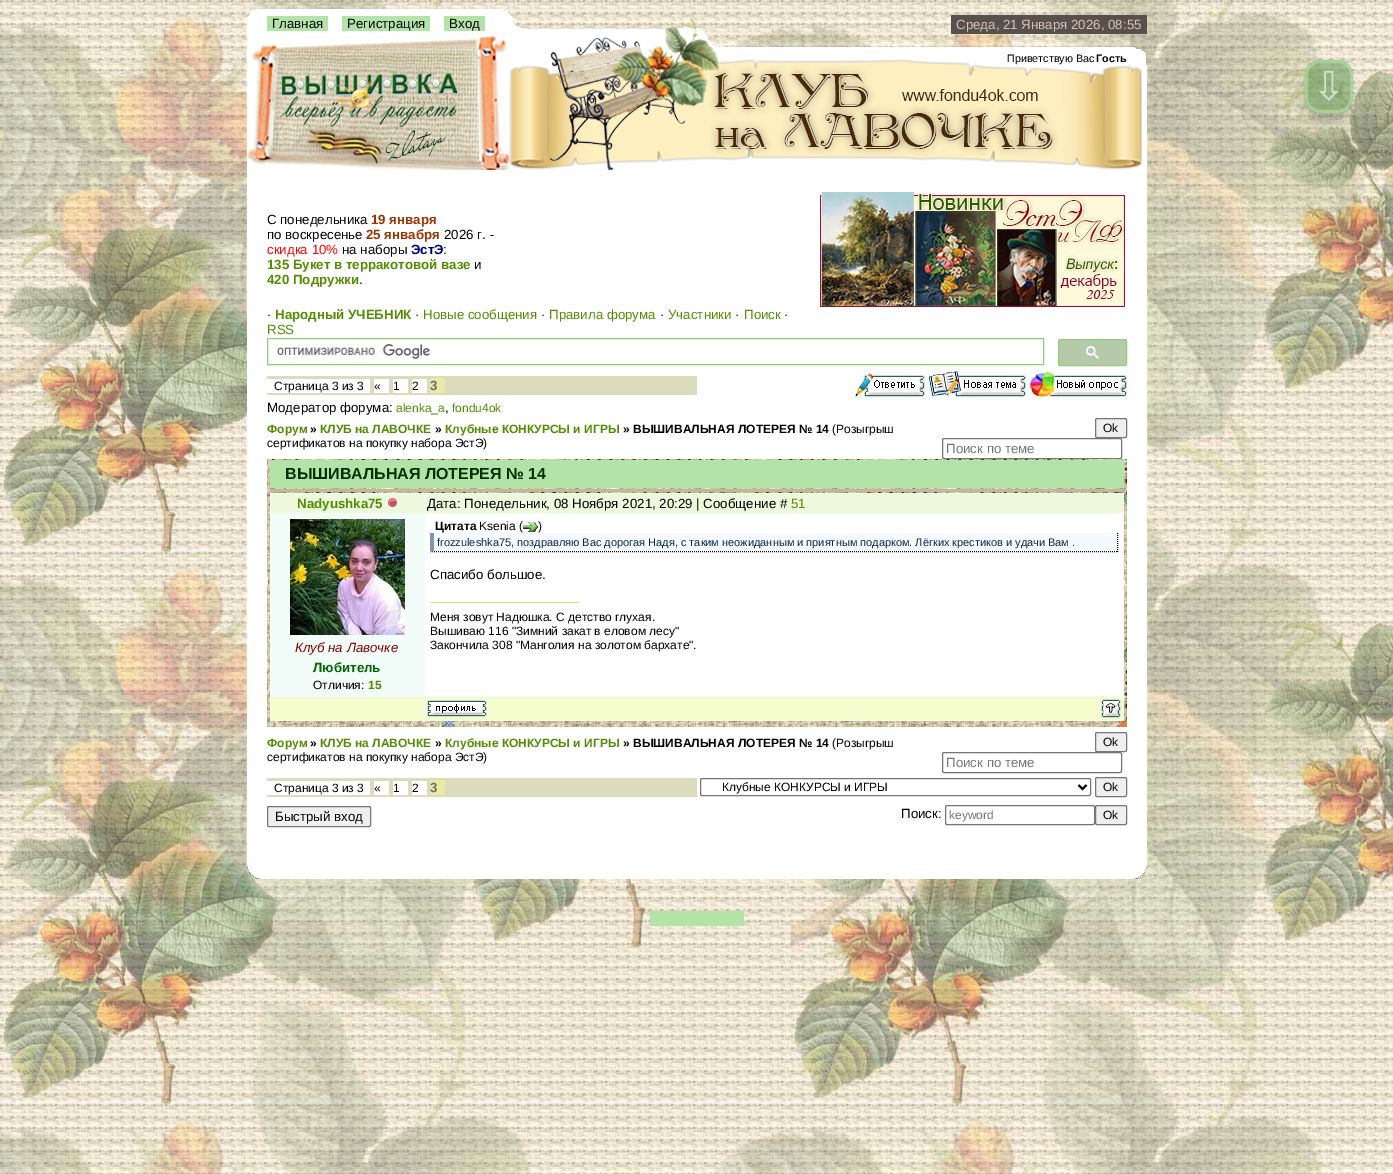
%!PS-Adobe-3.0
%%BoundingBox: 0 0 1393 1174
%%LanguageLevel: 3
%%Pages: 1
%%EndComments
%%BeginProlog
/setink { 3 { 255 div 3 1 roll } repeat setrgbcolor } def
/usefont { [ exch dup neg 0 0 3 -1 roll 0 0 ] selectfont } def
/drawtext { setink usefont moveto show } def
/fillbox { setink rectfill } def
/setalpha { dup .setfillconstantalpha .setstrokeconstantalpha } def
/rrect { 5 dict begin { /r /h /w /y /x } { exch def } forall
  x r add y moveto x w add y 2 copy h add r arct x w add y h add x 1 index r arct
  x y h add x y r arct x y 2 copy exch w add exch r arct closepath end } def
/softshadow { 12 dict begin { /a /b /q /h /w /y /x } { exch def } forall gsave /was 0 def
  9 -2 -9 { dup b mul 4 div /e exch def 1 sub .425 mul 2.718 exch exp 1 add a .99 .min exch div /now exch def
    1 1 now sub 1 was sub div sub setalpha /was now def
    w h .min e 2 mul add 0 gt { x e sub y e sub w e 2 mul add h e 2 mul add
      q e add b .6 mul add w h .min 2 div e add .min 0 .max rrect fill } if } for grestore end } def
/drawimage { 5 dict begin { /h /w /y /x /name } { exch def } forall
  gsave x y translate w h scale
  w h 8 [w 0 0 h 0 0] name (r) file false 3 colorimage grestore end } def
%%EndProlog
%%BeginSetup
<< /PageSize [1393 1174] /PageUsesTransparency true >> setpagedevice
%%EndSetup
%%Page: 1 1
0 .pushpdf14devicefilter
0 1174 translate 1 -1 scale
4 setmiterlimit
0 0 1393 1174 255 255 255 fillbox
(assets/img1.rgb) 0 0 1393 1174 drawimage
(assets/img2.rgb) 247 9 900 161 drawimage
267 16 61 15 179 227 169 fillbox
(Главная) 272 28 /LiberationSans-Regular 13.3 0 0 0 drawtext
342 16 88 15 179 227 169 fillbox
(Регистрация) 347 28 /LiberationSans-Regular 13.3 0 0 0 drawtext
444 16 41 15 179 227 169 fillbox
(Вход) 449 28 /LiberationSans-Regular 13.3 0 0 0 drawtext
951 15 196 19 88 80 75 fillbox
(Среда, 21 Января 2026, 08:55) 956 29 /LiberationSans-Regular 13.3 215 195 183 drawtext
(Приветствую Вас) 1007 62 /LiberationSans-Regular 10.75 0 0 0 drawtext
(Гость) 1096 62 /LiberationSans-Bold 10.75 0 0 0 drawtext
gsave
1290 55 moveto 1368 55 lineto 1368 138 lineto 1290 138 lineto closepath 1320 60 moveto 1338 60 lineto 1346.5 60 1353 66.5 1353 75 curveto 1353 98 lineto 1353 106.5 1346.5 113 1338 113 curveto 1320 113 lineto 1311.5 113 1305 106.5 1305 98 curveto 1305 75 lineto 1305 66.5 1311.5 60 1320 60 curveto closepath eoclip newpath
0 0 6 setink
1309 74 40 45 11 6 0.3 softshadow
grestore
0.6 setalpha
100 154 89 setink
1305 60 48 53 15 rrect fill
179 227 169 setink
3 setlinewidth
1306.5 61.5 45 50 13.5 rrect stroke
1 setalpha
(⇩) 1312 100 /DejaVuSans-Regular 40 212 224 204 drawtext
247 170 900 692 255 255 255 fillbox
(С понедельника) 267 224 /LiberationSans-Regular 13.3 0 0 0 drawtext
(19 января) 371 224 /LiberationSans-Bold 13.3 153 51 0 drawtext
(по воскресенье) 267 239 /LiberationSans-Regular 13.3 0 0 0 drawtext
(25 янвабря) 366 239 /LiberationSans-Bold 13.3 153 51 0 drawtext
(2026 г. -) 444 239 /LiberationSans-Regular 13.3 0 0 0 drawtext
(скидка 10%) 267 254 /LiberationSans-Regular 13.3 255 0 0 drawtext
(на наборы) 342 254 /LiberationSans-Regular 13.3 0 0 0 drawtext
(ЭстЭ) 411 254 /LiberationSans-Bold 13.3 0 0 128 drawtext
(:) 443 254 /LiberationSans-Regular 13.3 0 0 0 drawtext
(135 Букет в терракотовой вазе) 267 269 /LiberationSans-Bold 13.3 82 141 2 drawtext
(и) 474 269 /LiberationSans-Regular 13.3 0 0 0 drawtext
(420 Подружки) 267 284 /LiberationSans-Bold 13.3 82 141 2 drawtext
(.) 359 284 /LiberationSans-Regular 13.3 0 0 0 drawtext
(assets/img3.rgb) 820 192 305 115 drawimage
(·) 267 319 /LiberationSans-Regular 13.3 0 0 0 drawtext
(Народный УЧЕБНИК) 275 319 /LiberationSans-Bold 13.3 82 141 2 drawtext
(·) 415 319 /LiberationSans-Regular 13.3 0 0 0 drawtext
(Новые сообщения) 423 319 /LiberationSans-Regular 13.3 82 141 2 drawtext
(·) 541 319 /LiberationSans-Regular 13.3 0 0 0 drawtext
(Правила форума) 549 319 /LiberationSans-Regular 13.3 82 141 2 drawtext
(·) 660 319 /LiberationSans-Regular 13.3 0 0 0 drawtext
(Участники) 668 319 /LiberationSans-Regular 13.3 82 141 2 drawtext
(·) 735 319 /LiberationSans-Regular 13.3 0 0 0 drawtext
(Поиск) 744 319 /LiberationSans-Regular 13.3 82 141 2 drawtext
(·) 784 319 /LiberationSans-Regular 13.3 0 0 0 drawtext
(RSS) 267 334 /LiberationSans-Regular 13.3 82 141 2 drawtext
148 204 122 setink
1 setlinewidth
267.5 338.5 776 26 rectstroke
(assets/img4.rgb) 277 344 153 15 drawimage
181 201 171 setink
1058.5 339.5 68 26 1.5 rrect gsave fill grestore
148 204 122 setink
stroke
(assets/img5.rgb) 1086 346 13 13 drawimage
267 376 430 19 219 220 190 fillbox
267 379 103 14 255 255 255 fillbox
(Страница 3 из 3) 274 390 /LiberationSans-Regular 12 0 0 0 drawtext
374 379 15 14 255 255 255 fillbox
(«) 374 390 /LiberationSans-Regular 12 0 0 0 drawtext
393 379 15 14 255 255 255 fillbox
(1) 393 390 /LiberationSans-Regular 12 0 0 0 drawtext
412 379 15 14 255 255 255 fillbox
(2) 412 390 /LiberationSans-Regular 12 0 0 0 drawtext
430 378 15 15 233 235 162 fillbox
(3) 430 390 /LiberationSans-Bold 13.3 110 110 110 drawtext
(assets/img6.rgb) 855 373 70 24 drawimage
(assets/img7.rgb) 929 371 97 26 drawimage
(assets/img8.rgb) 1030 371 97 26 drawimage
(Модератор форума:) 267 412 /LiberationSans-Regular 13.3 0 0 0 drawtext
(alenka_a) 396 412 /LiberationSans-Regular 12 82 141 2 drawtext
(,) 445 412 /LiberationSans-Regular 13.3 0 0 0 drawtext
(fondu4ok) 452 412 /LiberationSans-Regular 12 82 141 2 drawtext
(Форум) 267 433 /LiberationSans-Bold 12 82 141 2 drawtext
(») 310 433 /LiberationSans-Bold 12 0 0 0 drawtext
(КЛУБ на ЛАВОЧКЕ) 320 433 /LiberationSans-Bold 12 82 141 2 drawtext
(») 435 433 /LiberationSans-Bold 12 0 0 0 drawtext
(Клубные КОНКУРСЫ и ИГРЫ) 445 433 /LiberationSans-Bold 12 82 141 2 drawtext
(» ВЫШИВАЛЬНАЯ ЛОТЕРЕЯ № 14) 623 433 /LiberationSans-Bold 12 0 0 0 drawtext
(\(Розыгрыш) 832 433 /LiberationSans-Regular 12 0 0 0 drawtext
(сертификатов на покупку набора ЭстЭ\)) 267 447 /LiberationSans-Regular 12 0 0 0 drawtext
239 239 239 setink
1095.5 418.5 31 19 1.5 rrect gsave fill grestore
118 118 118 setink
stroke
(Ok) 1103 432 /LiberationSans-Regular 12 0 0 0 drawtext
118 118 118 setink
942.5 438.5 179 20 1.5 rrect stroke
(Поиск по теме) 946 453 /LiberationSans-Regular 13.3 117 117 117 drawtext
(assets/img9.rgb) 267 459 860 268 drawimage
270 460 854 28 179 227 169 fillbox
(ВЫШИВАЛЬНАЯ ЛОТЕРЕЯ № 14) 285 479 /LiberationSans-Bold 16 0 51 0 drawtext
270 489 854 3 196 183 150 fillbox
270 493 854 228 242 252 248 fillbox
271 494 153 19 236 249 221 fillbox
(Nadyushka75) 297 508 /LiberationSans-Bold 13.3 82 141 2 drawtext
(assets/img10.rgb) 387 498 10 9 drawimage
425 494 698 19 236 249 221 fillbox
(Дата: Понедельник, 08 Ноября 2021, 20:29 | Сообщение #) 427 508 /LiberationSans-Regular 13.3 0 0 0 drawtext
(51) 791 508 /LiberationSans-Regular 13.3 82 141 2 drawtext
425 514 698 182 255 255 255 fillbox
(Цитата) 435 530 /LiberationSans-Bold 12 0 0 0 drawtext
(Ksenia \() 479 530 /LiberationSans-Regular 12 0 0 0 drawtext
(assets/img11.rgb) 523 522 15 10 drawimage
(\)) 538 530 /LiberationSans-Regular 12 0 0 0 drawtext
431 533 687 19 246 250 254 fillbox
0 0 0 setink
[1 1] 0 setdash
1117.5 533 moveto 1117.5 552 lineto stroke
430 551.5 moveto 1118 551.5 lineto stroke
131 148 178 setink
430 552 moveto 430 533 lineto 434 533 lineto 434 551 lineto closepath fill
(frozzuleshka75, поздравляю Вас дорогая Надя, с таким неожиданным и приятным подарком. Лёгких крестиков и удачи Вам .) 437 546 /LiberationSans-Regular 11 10 40 81 drawtext
(Спасибо большое.) 430 579 /LiberationSans-Regular 13.3 0 0 0 drawtext
430 602 150 1 214 227 125 fillbox
(Меня зовут Надюшка. С детство глухая.) 430 621 /LiberationSans-Regular 12 0 0 0 drawtext
(Вышиваю 116 "Зимний закат в еловом лесу") 430 635 /LiberationSans-Regular 12 0 0 0 drawtext
(Закончила 308 "Манголия на золотом бархате".) 430 649 /LiberationSans-Regular 12 0 0 0 drawtext
(assets/img12.rgb) 290 519 115 116 drawimage
(Клуб на Лавочке) 295 652 /LiberationSans-Italic 13.3 139 0 0 drawtext
(Любитель) 313 672 /LiberationSans-Bold 13.3 0 102 0 drawtext
(Отличия:) 313 689 /LiberationSans-Regular 12 0 0 0 drawtext
(15) 368 689 /LiberationSans-Bold 12 82 141 2 drawtext
271 697 153 23 245 252 205 fillbox
425 697 698 23 245 252 205 fillbox
(assets/img13.rgb) 427 700 60 17 drawimage
(assets/img14.rgb) 1101 699 20 19 drawimage
(Форум) 267 747 /LiberationSans-Bold 12 82 141 2 drawtext
(») 310 747 /LiberationSans-Bold 12 0 0 0 drawtext
(КЛУБ на ЛАВОЧКЕ) 320 747 /LiberationSans-Bold 12 82 141 2 drawtext
(») 435 747 /LiberationSans-Bold 12 0 0 0 drawtext
(Клубные КОНКУРСЫ и ИГРЫ) 445 747 /LiberationSans-Bold 12 82 141 2 drawtext
(» ВЫШИВАЛЬНАЯ ЛОТЕРЕЯ № 14) 623 747 /LiberationSans-Bold 12 0 0 0 drawtext
(\(Розыгрыш) 832 747 /LiberationSans-Regular 12 0 0 0 drawtext
(сертификатов на покупку набора ЭстЭ\)) 267 761 /LiberationSans-Regular 12 0 0 0 drawtext
239 239 239 setink
1095.5 732.5 31 19 1.5 rrect gsave fill grestore
118 118 118 setink
[] 0 setdash
stroke
(Ok) 1103 746 /LiberationSans-Regular 12 0 0 0 drawtext
118 118 118 setink
942.5 752.5 179 20 1.5 rrect stroke
(Поиск по теме) 946 767 /LiberationSans-Regular 13.3 117 117 117 drawtext
267 778 430 19 219 220 190 fillbox
267 781 103 14 255 255 255 fillbox
(Страница 3 из 3) 274 792 /LiberationSans-Regular 12 0 0 0 drawtext
374 781 15 14 255 255 255 fillbox
(«) 374 792 /LiberationSans-Regular 12 0 0 0 drawtext
393 781 15 14 255 255 255 fillbox
(1) 393 792 /LiberationSans-Regular 12 0 0 0 drawtext
412 781 15 14 255 255 255 fillbox
(2) 412 792 /LiberationSans-Regular 12 0 0 0 drawtext
430 780 15 15 233 235 162 fillbox
(3) 430 792 /LiberationSans-Bold 13.3 110 110 110 drawtext
118 118 118 setink
700.5 778.5 390 17 1.5 rrect stroke
0 0 0 setink
2 setlinewidth
1078.5 785 moveto 1082.5 789 lineto 1086.5 785 lineto stroke
(Клубные КОНКУРСЫ и ИГРЫ) 722 791 /LiberationSans-Regular 12 0 0 0 drawtext
239 239 239 setink
1095.5 777.5 31 19 1.5 rrect gsave fill grestore
118 118 118 setink
1 setlinewidth
stroke
(Ok) 1103 791 /LiberationSans-Regular 12 0 0 0 drawtext
239 239 239 setink
267.5 806.5 103 20 1.5 rrect gsave fill grestore
118 118 118 setink
stroke
(Быстрый вход) 275 821 /LiberationSans-Regular 13.3 0 0 0 drawtext
(Поиск:) 901 818 /LiberationSans-Regular 13.3 0 0 0 drawtext
118 118 118 setink
945.5 805.5 149 19 1.5 rrect stroke
(keyword) 949 819 /LiberationSans-Regular 12 117 117 117 drawtext
239 239 239 setink
1095.5 805.5 31 19 1.5 rrect gsave fill grestore
118 118 118 setink
stroke
(Ok) 1103 819 /LiberationSans-Regular 12 0 0 0 drawtext
(assets/img15.rgb) 247 862 900 17 drawimage
650 911 94 15 179 227 169 fillbox
.poppdf14devicefilter showpage
%%EOF
